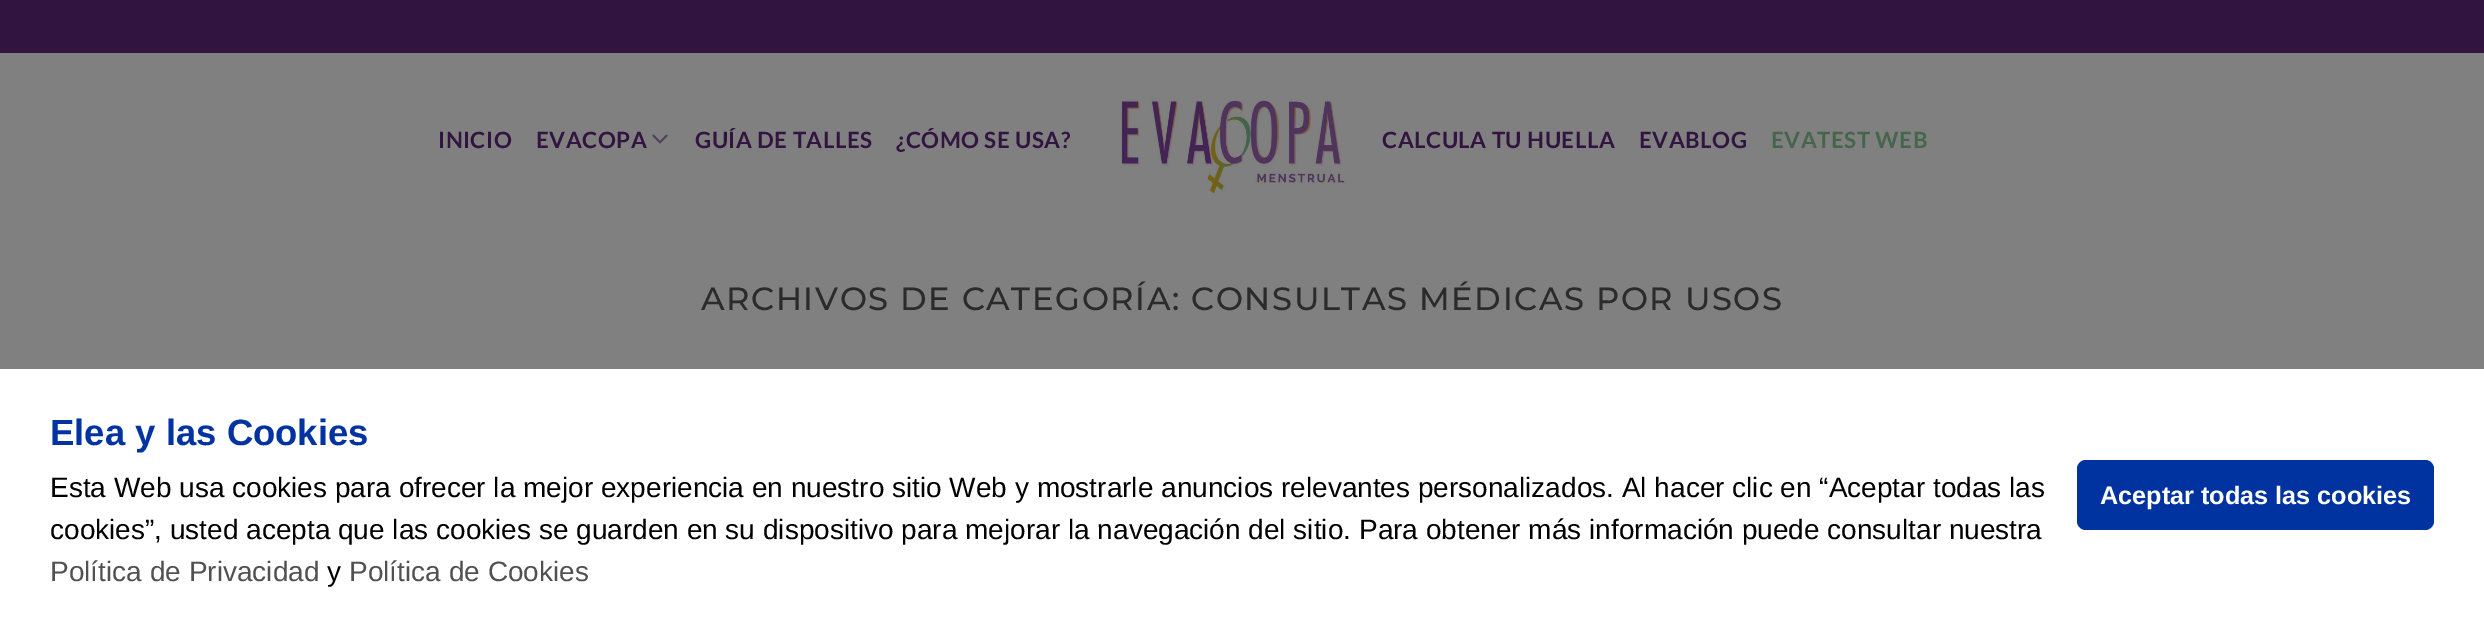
%!PS-Adobe-3.0
%%BoundingBox: 0 0 2484 621
%%LanguageLevel: 3
%%Pages: 1
%%EndComments
%%BeginProlog
/setink { 3 { 255 div 3 1 roll } repeat setrgbcolor } def
/usefont { [ exch dup neg 0 0 3 -1 roll 0 0 ] selectfont } def
/drawtext { setink usefont moveto show } def
/fillbox { setink rectfill } def
/rrect { 5 dict begin { /r /h /w /y /x } { exch def } forall
  x r add y moveto x w add y 2 copy h add r arct x w add y h add x 1 index r arct
  x y h add x y r arct x y 2 copy exch w add exch r arct closepath end } def
/drawimage { 5 dict begin { /h /w /y /x /name } { exch def } forall
  gsave x y translate w h scale
  w h 8 [w 0 0 h 0 0] name (r) file false 3 colorimage grestore end } def
%%EndProlog
%%BeginSetup
<< /PageSize [2484 621] >> setpagedevice
%%EndSetup
%%Page: 1 1
0 621 translate 1 -1 scale
4 setmiterlimit
0 0 2484 621 128 128 128 fillbox
0 0 2484 53 49 20 64 fillbox
/Lato-Bold 22.4 usefont
438 148 moveto 0.5 0 (INICIO) ashow
536 148 moveto 0.5 0 (EVACOPA) ashow
(assets/img1.rgb) 652 134 16 10 drawimage
695 148 moveto 0.5 0 (GUÍA DE TALLES) ashow
896 148 moveto 0.5 0 (¿CÓMO SE USA?) ashow
(assets/img2.rgb) 1120 98 226 96 drawimage
1382 148 moveto 0.5 0 (CALCULA TU HUELLA) ashow
1639 148 moveto 0.5 0 (EVABLOG) ashow
70 102 76 setink
1771 148 moveto 0.5 0 (EVATEST WEB) ashow
/Montserrat-Medium 32.2 usefont
43 43 43 setink
701 310 moveto 1.6 0 (ARCHIVOS DE CATEGORÍA: CONSULTAS MÉDICAS POR USOS) ashow
0 369 2484 252 255 255 255 fillbox
(Elea y las Cookies) 50 445 /LiberationSans-Bold 36.5 2 51 160 drawtext
(Esta Web usa cookies para ofrecer la mejor experiencia en nuestro sitio Web y mostrarle anuncios relevantes personalizados. Al hacer clic en “Aceptar todas las) 50 497 /LiberationSans-Regular 28 0 0 0 drawtext
(cookies”, usted acepta que las cookies se guarden en su dispositivo para mejorar la navegación del sitio. Para obtener más información puede consultar nuestra) 50 539 /LiberationSans-Regular 28 0 0 0 drawtext
(Política de Privacidad) 50 581 /LiberationSans-Regular 28 81 81 81 drawtext
(y) 327 581 /LiberationSans-Regular 28 0 0 0 drawtext
(Política de Cookies) 349 581 /LiberationSans-Regular 28 81 81 81 drawtext
1 51 160 setink
2077 460 357 70 9 rrect fill
(Aceptar todas las cookies) 2100 504 /LiberationSans-Bold 25.25 255 255 255 drawtext
showpage
%%EOF
